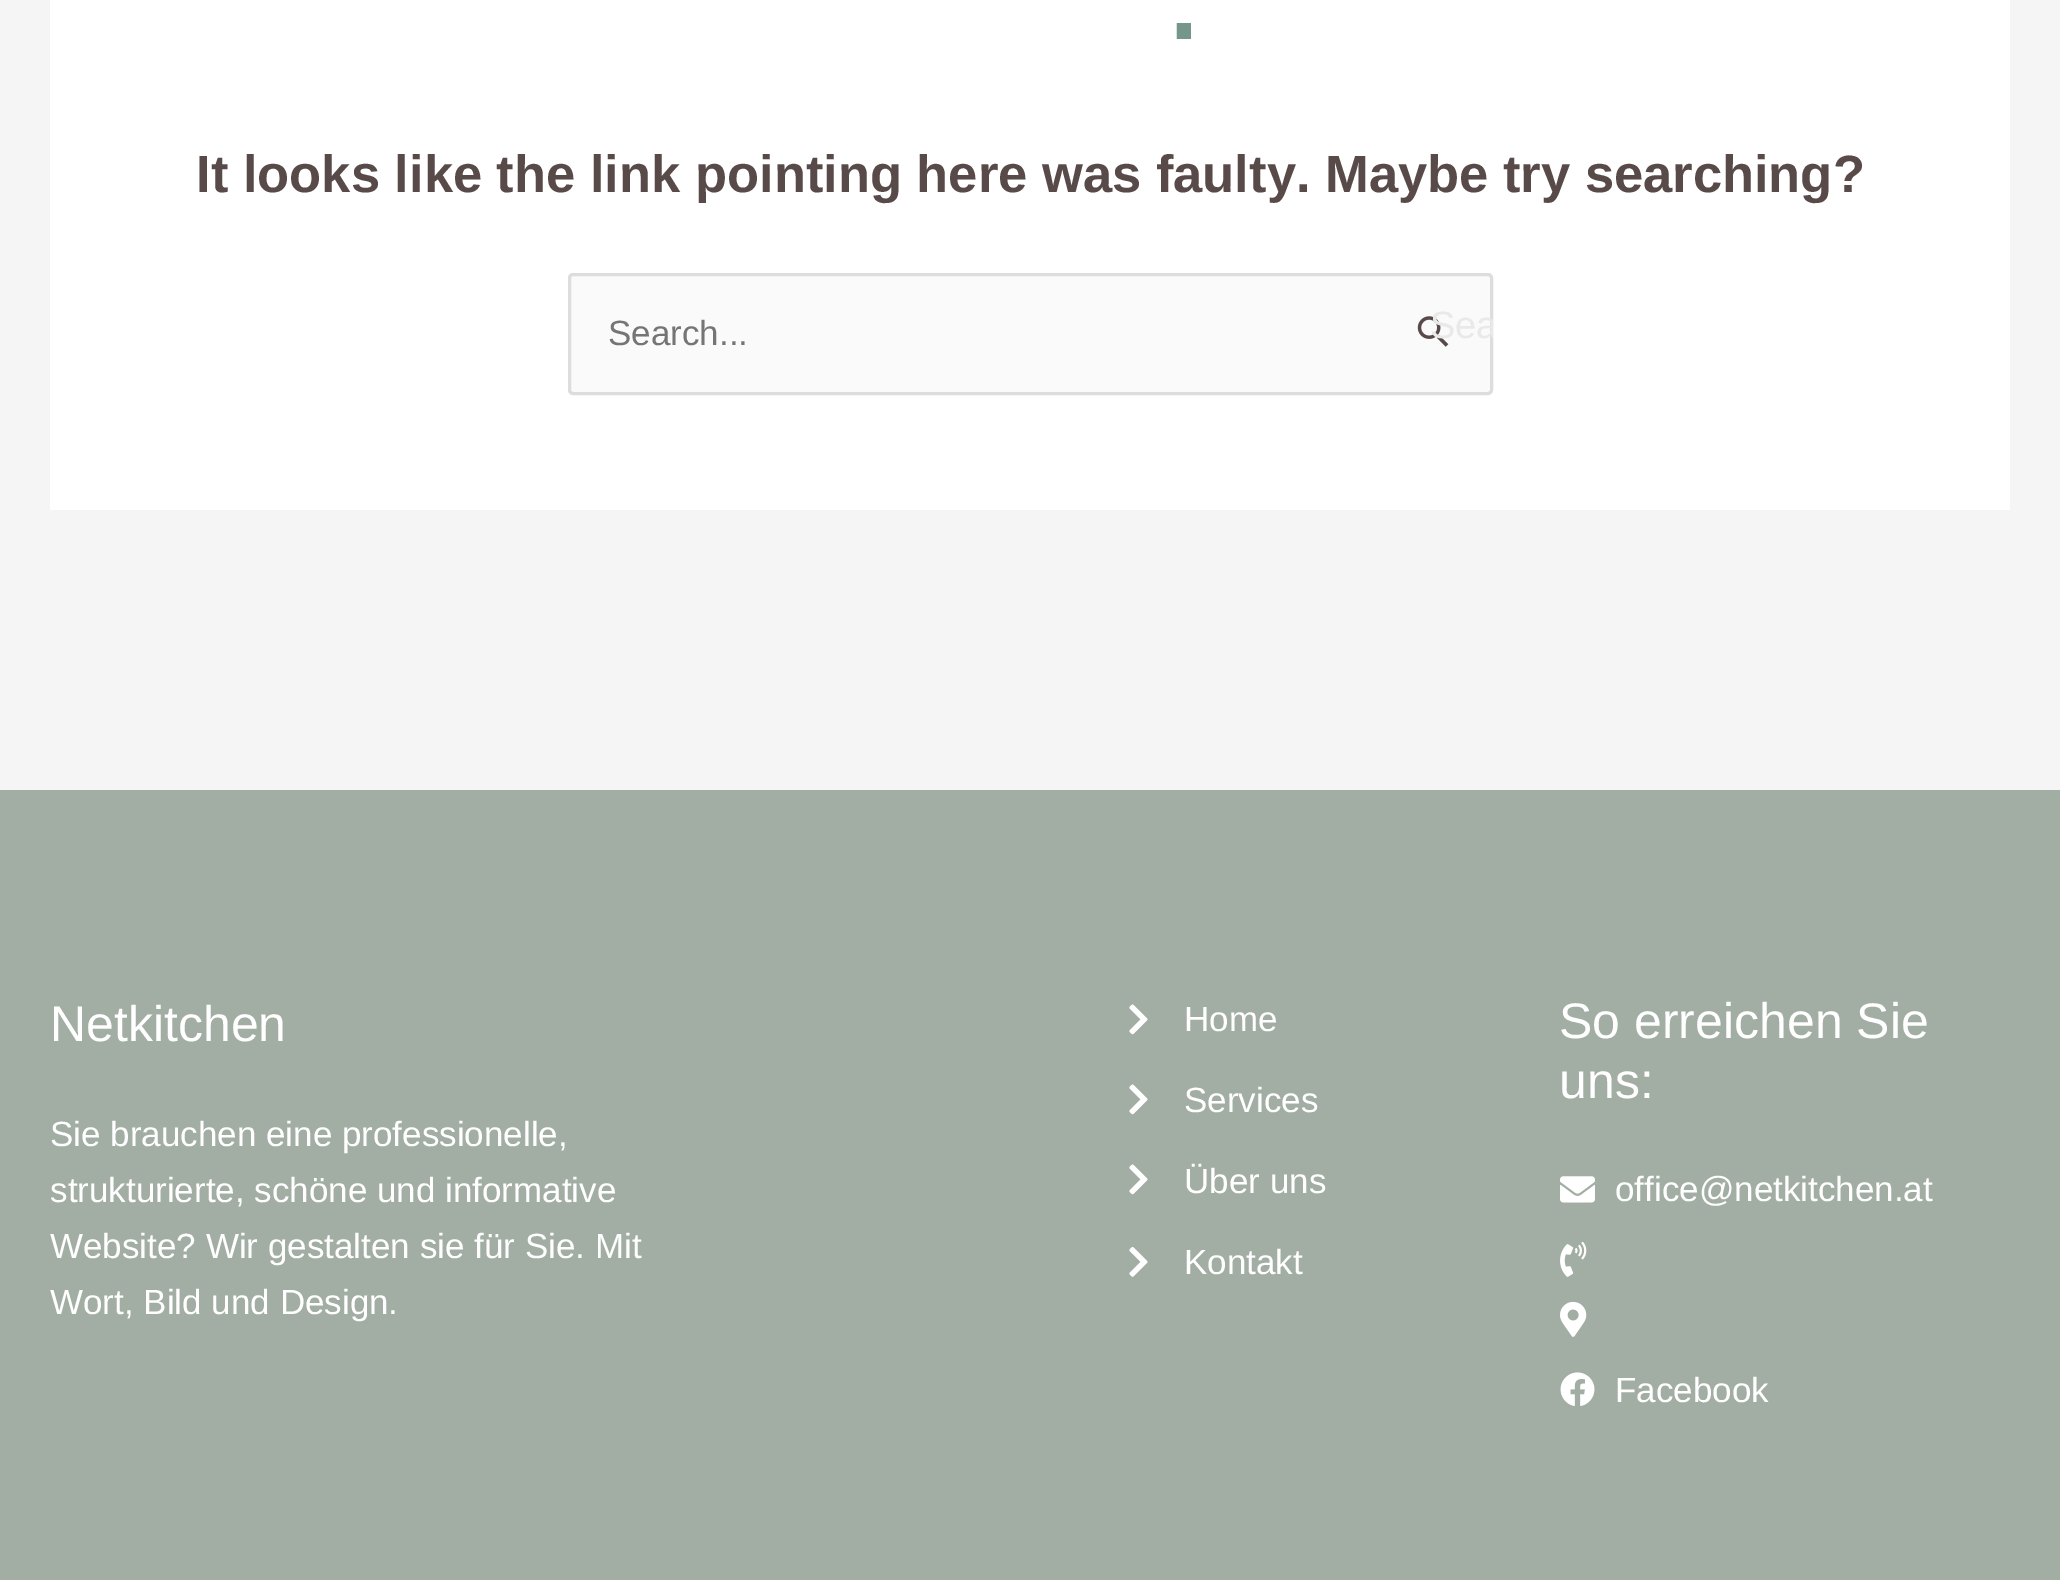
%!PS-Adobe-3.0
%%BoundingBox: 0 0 2060 1580
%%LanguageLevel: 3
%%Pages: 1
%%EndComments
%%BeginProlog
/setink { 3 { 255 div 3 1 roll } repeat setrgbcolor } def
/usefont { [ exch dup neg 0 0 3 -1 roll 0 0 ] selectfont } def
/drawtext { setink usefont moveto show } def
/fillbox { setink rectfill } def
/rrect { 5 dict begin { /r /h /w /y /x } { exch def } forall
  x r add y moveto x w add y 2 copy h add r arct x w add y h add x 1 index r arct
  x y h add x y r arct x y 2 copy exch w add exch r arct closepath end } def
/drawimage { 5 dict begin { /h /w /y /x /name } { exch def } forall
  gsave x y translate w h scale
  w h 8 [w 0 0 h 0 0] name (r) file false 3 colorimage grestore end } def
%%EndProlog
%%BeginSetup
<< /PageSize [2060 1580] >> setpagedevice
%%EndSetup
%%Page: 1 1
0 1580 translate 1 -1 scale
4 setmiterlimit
0 0 2060 1580 245 245 245 fillbox
50 0 1960 510 255 255 255 fillbox
(.) 1163 39 /LiberationSans-Regular 150 118 150 140 drawtext
(It looks like the link pointing here was faulty. Maybe try searching?) 196 192 /LiberationSans-Bold 52.5 89 74 74 drawtext
250 250 250 setink
569.5 274.5 922 119 3.5 rrect gsave fill grestore
221 221 221 setink
3 setlinewidth
stroke
(assets/img1.rgb) 1417 316 32 31 drawimage
gsave
1380 273 113 102 5 rrect clip newpath
(Sea) 1430 338 /LiberationSans-Regular 38 234 233 233 drawtext
grestore
(Search...) 608 345 /LiberationSans-Regular 35 117 117 117 drawtext
0 790 2060 790 162 173 164 fillbox
(Netkitchen) 50 1041 /LiberationSans-Regular 50 255 255 255 drawtext
(Sie brauchen eine professionelle,) 50 1146 /LiberationSans-Regular 35 255 255 255 drawtext
(strukturierte, schöne und informative) 50 1202 /LiberationSans-Regular 35 255 255 255 drawtext
(Website? Wir gestalten sie für Sie. Mit) 50 1258 /LiberationSans-Regular 35 255 255 255 drawtext
(Wort, Bild und Design.) 50 1314 /LiberationSans-Regular 35 255 255 255 drawtext
(assets/img2.rgb) 1129 1004 19 31 drawimage
(Home) 1184 1031 /LiberationSans-Regular 35 255 255 255 drawtext
(assets/img2.rgb) 1129 1084 19 31 drawimage
(Services) 1184 1112 /LiberationSans-Regular 35 255 255 255 drawtext
(assets/img2.rgb) 1129 1164 19 31 drawimage
(Über uns) 1184 1193 /LiberationSans-Regular 35 255 255 255 drawtext
(assets/img3.rgb) 1129 1247 19 30 drawimage
(Kontakt) 1184 1274 /LiberationSans-Regular 35 255 255 255 drawtext
(So erreichen Sie) 1559 1038 /LiberationSans-Regular 50 255 255 255 drawtext
(uns:) 1559 1098 /LiberationSans-Regular 50 255 255 255 drawtext
(assets/img4.rgb) 1560 1176 35 27 drawimage
(office@netkitchen.at) 1615 1201 /LiberationSans-Regular 35 255 255 255 drawtext
(assets/img5.rgb) 1560 1241 27 36 drawimage
(assets/img6.rgb) 1560 1301 27 36 drawimage
(assets/img7.rgb) 1560 1372 35 34 drawimage
(Facebook) 1615 1402 /LiberationSans-Regular 35 255 255 255 drawtext
showpage
%%EOF
